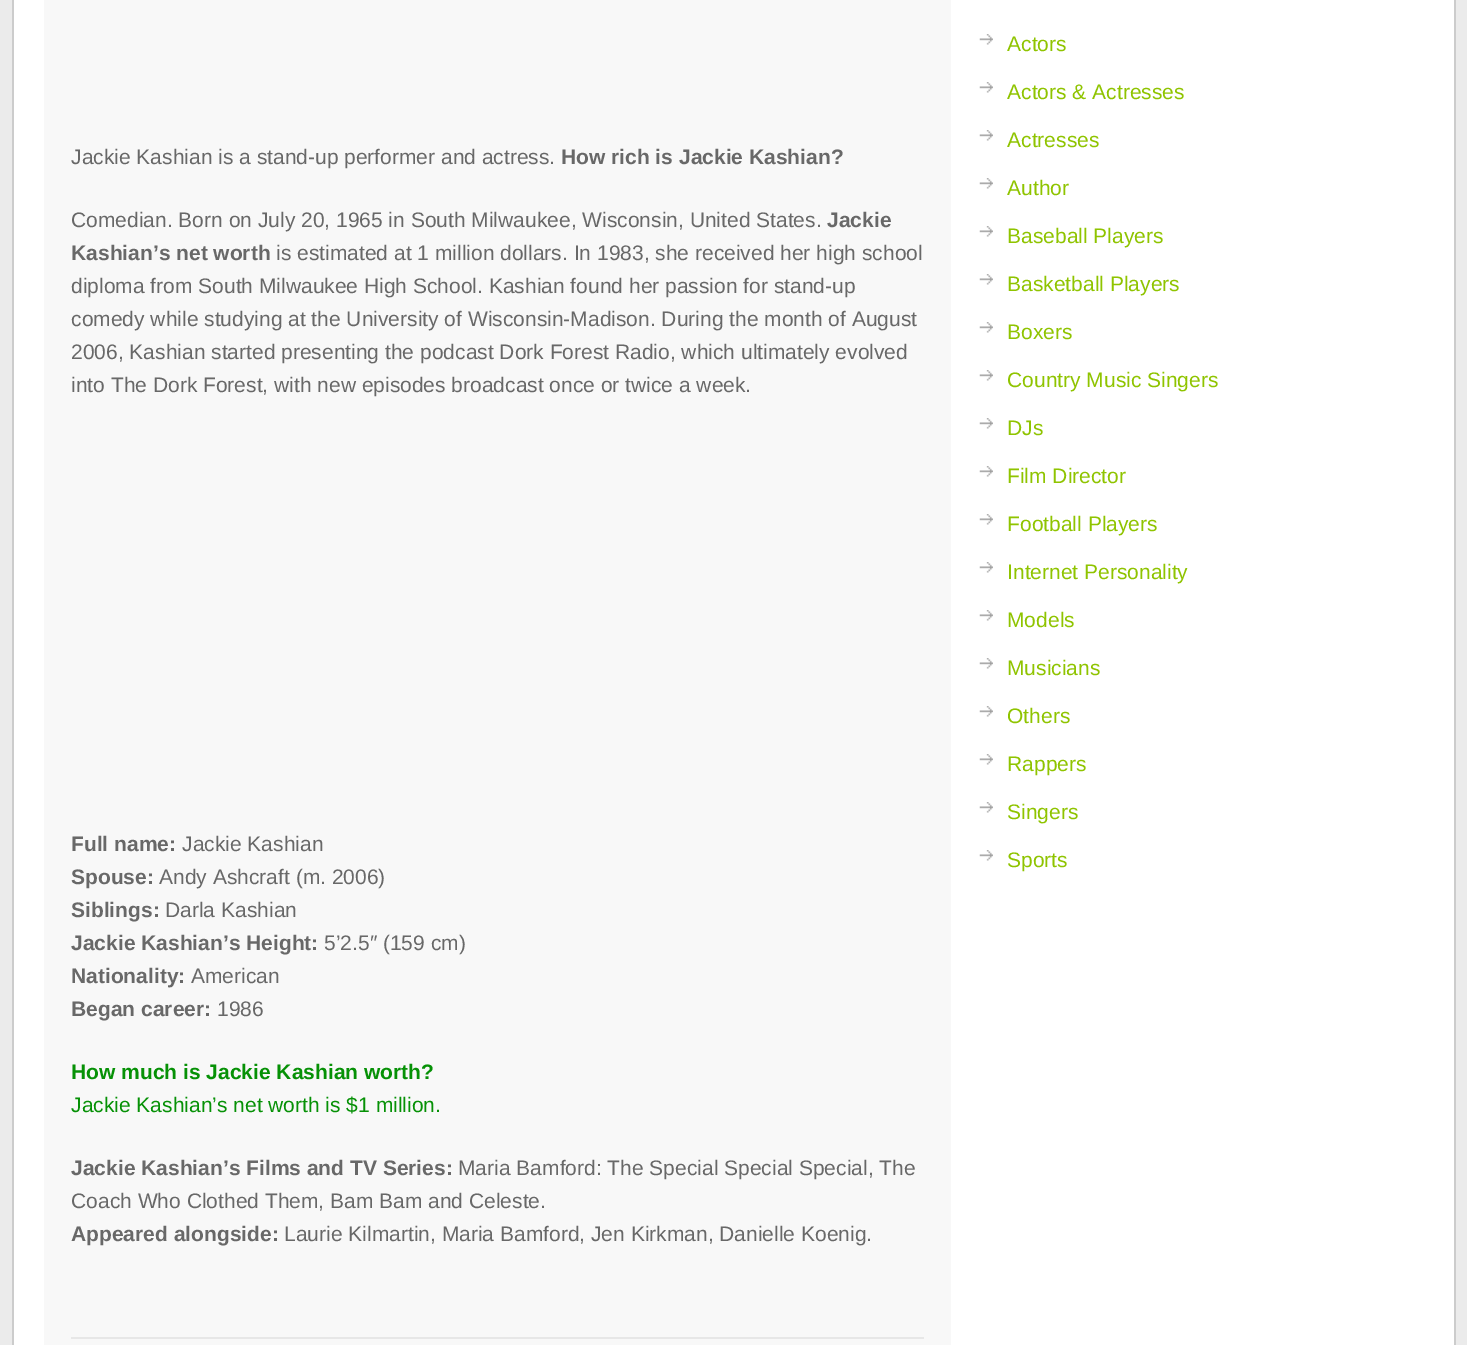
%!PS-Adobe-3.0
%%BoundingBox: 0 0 1467 1345
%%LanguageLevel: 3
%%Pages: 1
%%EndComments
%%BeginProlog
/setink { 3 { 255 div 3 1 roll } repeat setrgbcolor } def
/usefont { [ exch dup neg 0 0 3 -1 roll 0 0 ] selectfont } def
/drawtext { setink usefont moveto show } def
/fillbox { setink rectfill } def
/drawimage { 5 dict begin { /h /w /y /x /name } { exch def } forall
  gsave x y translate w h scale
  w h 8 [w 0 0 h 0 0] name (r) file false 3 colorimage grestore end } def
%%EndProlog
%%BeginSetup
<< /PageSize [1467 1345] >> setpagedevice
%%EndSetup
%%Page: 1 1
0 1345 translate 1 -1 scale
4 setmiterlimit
0 0 1467 1345 235 235 235 fillbox
14 0 1440 1345 255 255 255 fillbox
1454 0 2 1345 204 204 204 fillbox
12 0 2 1345 204 204 204 fillbox
44 0 907 1345 248 248 248 fillbox
(Jackie Kashian is a stand-up performer and actress.) 71 164 /LiberationSans-Regular 21 104 104 104 drawtext
(How rich is Jackie Kashian?) 561 164 /LiberationSans-Bold 21 104 104 104 drawtext
(Comedian. Born on July 20, 1965 in South Milwaukee, Wisconsin, United States.) 71 227 /LiberationSans-Regular 21 104 104 104 drawtext
(Jackie) 827 227 /LiberationSans-Bold 21 104 104 104 drawtext
(Kashian’s net worth) 71 260 /LiberationSans-Bold 21 104 104 104 drawtext
(is estimated at 1 million dollars. In 1983, she received her high school) 276 260 /LiberationSans-Regular 21 104 104 104 drawtext
(diploma from South Milwaukee High School. Kashian found her passion for stand-up) 71 293 /LiberationSans-Regular 21 104 104 104 drawtext
(comedy while studying at the University of Wisconsin-Madison. During the month of August) 71 326 /LiberationSans-Regular 21 104 104 104 drawtext
(2006, Kashian started presenting the podcast Dork Forest Radio, which ultimately evolved) 71 359 /LiberationSans-Regular 21 104 104 104 drawtext
(into The Dork Forest, with new episodes broadcast once or twice a week.) 71 392 /LiberationSans-Regular 21 104 104 104 drawtext
(Full name:) 71 851 /LiberationSans-Bold 21 104 104 104 drawtext
(Jackie Kashian) 182 851 /LiberationSans-Regular 21 104 104 104 drawtext
(Spouse:) 71 884 /LiberationSans-Bold 21 104 104 104 drawtext
(Andy Ashcraft \(m. 2006\)) 159 884 /LiberationSans-Regular 21 104 104 104 drawtext
(Siblings:) 71 917 /LiberationSans-Bold 21 104 104 104 drawtext
(Darla Kashian) 165 917 /LiberationSans-Regular 21 104 104 104 drawtext
(Jackie Kashian’s Height:) 71 950 /LiberationSans-Bold 21 104 104 104 drawtext
(5’2.5″ \(159 cm\)) 324 950 /LiberationSans-Regular 21 104 104 104 drawtext
(Nationality:) 71 983 /LiberationSans-Bold 21 104 104 104 drawtext
(American) 191 983 /LiberationSans-Regular 21 104 104 104 drawtext
(Began career:) 71 1016 /LiberationSans-Bold 21 104 104 104 drawtext
(1986) 217 1016 /LiberationSans-Regular 21 104 104 104 drawtext
(How much is Jackie Kashian worth?) 71 1079 /LiberationSans-Bold 21 6 145 6 drawtext
(Jackie Kashian’s net worth is $1 million.) 71 1112 /LiberationSans-Regular 21 6 145 6 drawtext
(Jackie Kashian’s Films and TV Series:) 71 1175 /LiberationSans-Bold 21 104 104 104 drawtext
(Maria Bamford: The Special Special Special, The) 458 1175 /LiberationSans-Regular 21 104 104 104 drawtext
(Coach Who Clothed Them, Bam Bam and Celeste.) 71 1208 /LiberationSans-Regular 21 104 104 104 drawtext
(Appeared alongside:) 71 1241 /LiberationSans-Bold 21 104 104 104 drawtext
(Laurie Kilmartin, Maria Bamford, Jen Kirkman, Danielle Koenig.) 284 1241 /LiberationSans-Regular 21 104 104 104 drawtext
71 1337 853 2 231 231 231 fillbox
(assets/img1.rgb) 979 34 14 11 drawimage
(Actors) 1007 51 /LiberationSans-Regular 21 143 196 0 drawtext
(assets/img1.rgb) 979 82 14 11 drawimage
(Actors & Actresses) 1007 99 /LiberationSans-Regular 21 143 196 0 drawtext
(assets/img1.rgb) 979 130 14 11 drawimage
(Actresses) 1007 147 /LiberationSans-Regular 21 143 196 0 drawtext
(assets/img1.rgb) 979 178 14 11 drawimage
(Author) 1007 195 /LiberationSans-Regular 21 143 196 0 drawtext
(assets/img1.rgb) 979 226 14 11 drawimage
(Baseball Players) 1007 243 /LiberationSans-Regular 21 143 196 0 drawtext
(assets/img1.rgb) 979 274 14 11 drawimage
(Basketball Players) 1007 291 /LiberationSans-Regular 21 143 196 0 drawtext
(assets/img1.rgb) 979 322 14 11 drawimage
(Boxers) 1007 339 /LiberationSans-Regular 21 143 196 0 drawtext
(assets/img1.rgb) 979 370 14 11 drawimage
(Country Music Singers) 1007 387 /LiberationSans-Regular 21 143 196 0 drawtext
(assets/img1.rgb) 979 418 14 11 drawimage
(DJs) 1007 435 /LiberationSans-Regular 21 143 196 0 drawtext
(assets/img1.rgb) 979 466 14 11 drawimage
(Film Director) 1007 483 /LiberationSans-Regular 21 143 196 0 drawtext
(assets/img1.rgb) 979 514 14 11 drawimage
(Football Players) 1007 531 /LiberationSans-Regular 21 143 196 0 drawtext
(assets/img1.rgb) 979 562 14 11 drawimage
(Internet Personality) 1007 579 /LiberationSans-Regular 21 143 196 0 drawtext
(assets/img1.rgb) 979 610 14 11 drawimage
(Models) 1007 627 /LiberationSans-Regular 21 143 196 0 drawtext
(assets/img1.rgb) 979 658 14 11 drawimage
(Musicians) 1007 675 /LiberationSans-Regular 21 143 196 0 drawtext
(assets/img1.rgb) 979 706 14 11 drawimage
(Others) 1007 723 /LiberationSans-Regular 21 143 196 0 drawtext
(assets/img1.rgb) 979 754 14 11 drawimage
(Rappers) 1007 771 /LiberationSans-Regular 21 143 196 0 drawtext
(assets/img1.rgb) 979 802 14 11 drawimage
(Singers) 1007 819 /LiberationSans-Regular 21 143 196 0 drawtext
(assets/img1.rgb) 979 850 14 11 drawimage
(Sports) 1007 867 /LiberationSans-Regular 21 143 196 0 drawtext
showpage
%%EOF
